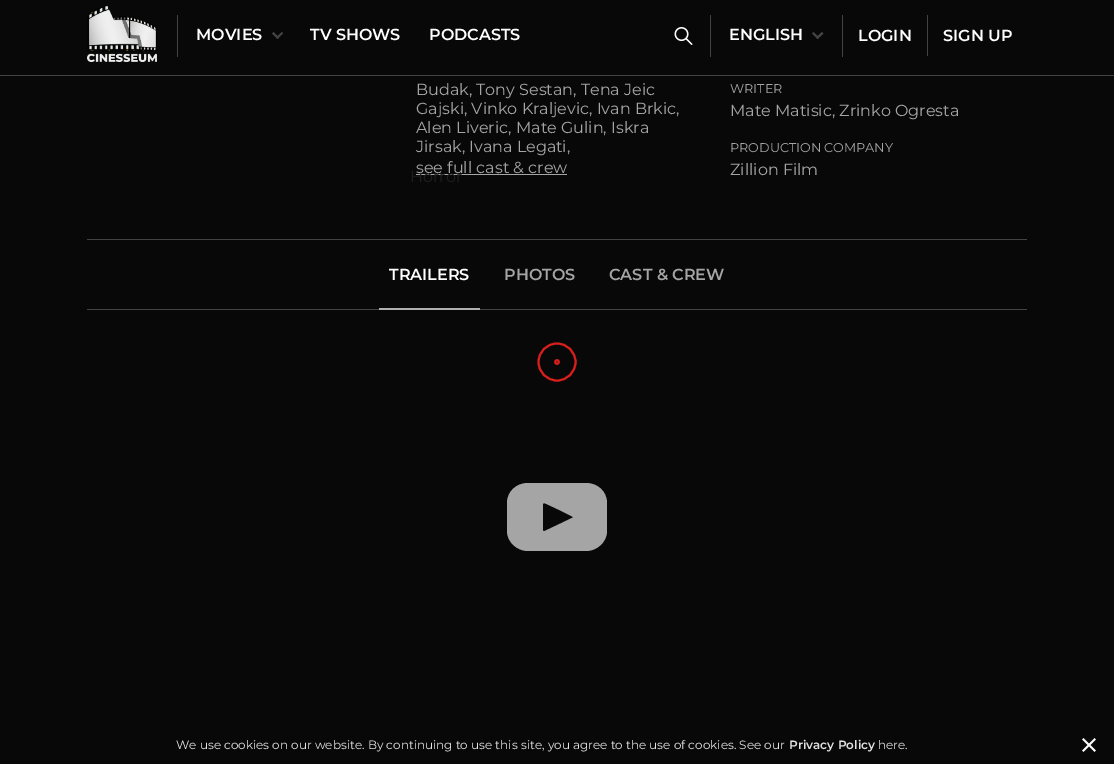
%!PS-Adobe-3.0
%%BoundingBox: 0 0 1114 764
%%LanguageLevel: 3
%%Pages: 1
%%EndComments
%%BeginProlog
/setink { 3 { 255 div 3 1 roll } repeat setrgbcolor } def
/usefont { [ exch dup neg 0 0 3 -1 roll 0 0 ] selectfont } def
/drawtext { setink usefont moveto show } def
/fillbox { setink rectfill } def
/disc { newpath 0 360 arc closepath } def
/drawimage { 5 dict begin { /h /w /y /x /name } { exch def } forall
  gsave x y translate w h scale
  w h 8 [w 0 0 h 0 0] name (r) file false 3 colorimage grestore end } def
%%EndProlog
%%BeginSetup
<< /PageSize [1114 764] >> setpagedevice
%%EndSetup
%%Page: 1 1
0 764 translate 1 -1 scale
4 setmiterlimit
0 0 1114 764 8 8 8 fillbox
0 75 1114 1 67 67 67 fillbox
(assets/img1.rgb) 87 5 70 57 drawimage
177 15 1 42 67 67 67 fillbox
(MOVIES) 196 40 /Montserrat-SemiBold 16 255 255 255 drawtext
67 67 67 setink
282 32 moveto 283 33.5 lineto 277.5 39 lineto 276 37.5 lineto closepath fill
273.5 32 moveto 279 37.5 lineto 277.5 39 lineto 272 33.5 lineto closepath fill
416 174 151 1 165 165 165 fillbox
(Horror) 410 182 /Montserrat-Regular 16 30 30 30 drawtext
(TV SHOWS) 310 40 /Montserrat-SemiBold 16 255 255 255 drawtext
(PODCASTS) 429 40 /Montserrat-SemiBold 16 255 255 255 drawtext
710 15 1 42 67 67 67 fillbox
(assets/img2.rgb) 674 27 19 18 drawimage
842 15 1 42 67 67 67 fillbox
(ENGLISH) 729 40 /Montserrat-SemiBold 16 255 255 255 drawtext
67 67 67 setink
822 32 moveto 823.5 33.5 lineto 817.5 39 lineto 816 37.5 lineto closepath fill
813.5 32 moveto 819 37.5 lineto 817.5 39 lineto 812 33.5 lineto closepath fill
927 15 1 41 67 67 67 fillbox
(LOGIN) 858 41 /Montserrat-SemiBold 16 255 255 255 drawtext
(SIGN UP) 943 41 /Montserrat-SemiBold 16 255 255 255 drawtext
(Budak, Tony Sestan, Tena Jeic) 416 95 /Montserrat-Regular 16 165 165 165 drawtext
(Gajski, Vinko Kraljevic, Ivan Brkic,) 416 114 /Montserrat-Regular 16 165 165 165 drawtext
(Alen Liveric, Mate Gulin, Iskra) 416 133 /Montserrat-Regular 16 165 165 165 drawtext
(Jirsak, Ivana Legati,) 416 152 /Montserrat-Regular 16 165 165 165 drawtext
(see full cast & crew) 416 173 /Montserrat-Regular 16 165 165 165 drawtext
(WRITER) 730 93 /Montserrat-Regular 12.75 165 165 165 drawtext
(Mate Matisic, Zrinko Ogresta) 730 116 /Montserrat-Regular 16 165 165 165 drawtext
(PRODUCTION COMPANY) 730 152 /Montserrat-Regular 12.75 165 165 165 drawtext
(Zillion Film) 730 175 /Montserrat-Regular 16 165 165 165 drawtext
87 239 940 1 67 67 67 fillbox
87 309 940 1 67 67 67 fillbox
(TRAILERS) 389 280 /Montserrat-SemiBold 16 255 255 255 drawtext
379 308 101 2 175 175 175 fillbox
(PHOTOS) 504 280 /Montserrat-SemiBold 16 165 165 165 drawtext
(CAST & CREW) 609 280 /Montserrat-SemiBold 16 165 165 165 drawtext
217 31 30 setink
2 setlinewidth
557 362 1.8 disc stroke
557 362 18.5 disc stroke
165 165 165 setink
586 483 moveto 528 483 lineto 517 483 507 491 507 503 curveto 507 531 lineto 507 542 517 551 528 551 curveto 586 551 lineto 597 551 607 542 607 531 curveto 607 503 lineto 607 491 597 483 586 483 curveto closepath 572 518 moveto 549 529 lineto 541 533 543 532 543 521 curveto 543 504 lineto 544 503 lineto 545 503 570 515 573 517 curveto 573 517 573 518 572 518 curveto closepath fill
(We use cookies on our website. By continuing to use this site, you agree to the use of cookies. See our) 176 749 /Montserrat-Regular 12 227 227 227 drawtext
(Privacy Policy) 789 749 /Montserrat-SemiBold 12 227 227 227 drawtext
(here.) 878 749 /Montserrat-Regular 12 227 227 227 drawtext
(assets/img3.rgb) 1082 738 14 14 drawimage
showpage
%%EOF
